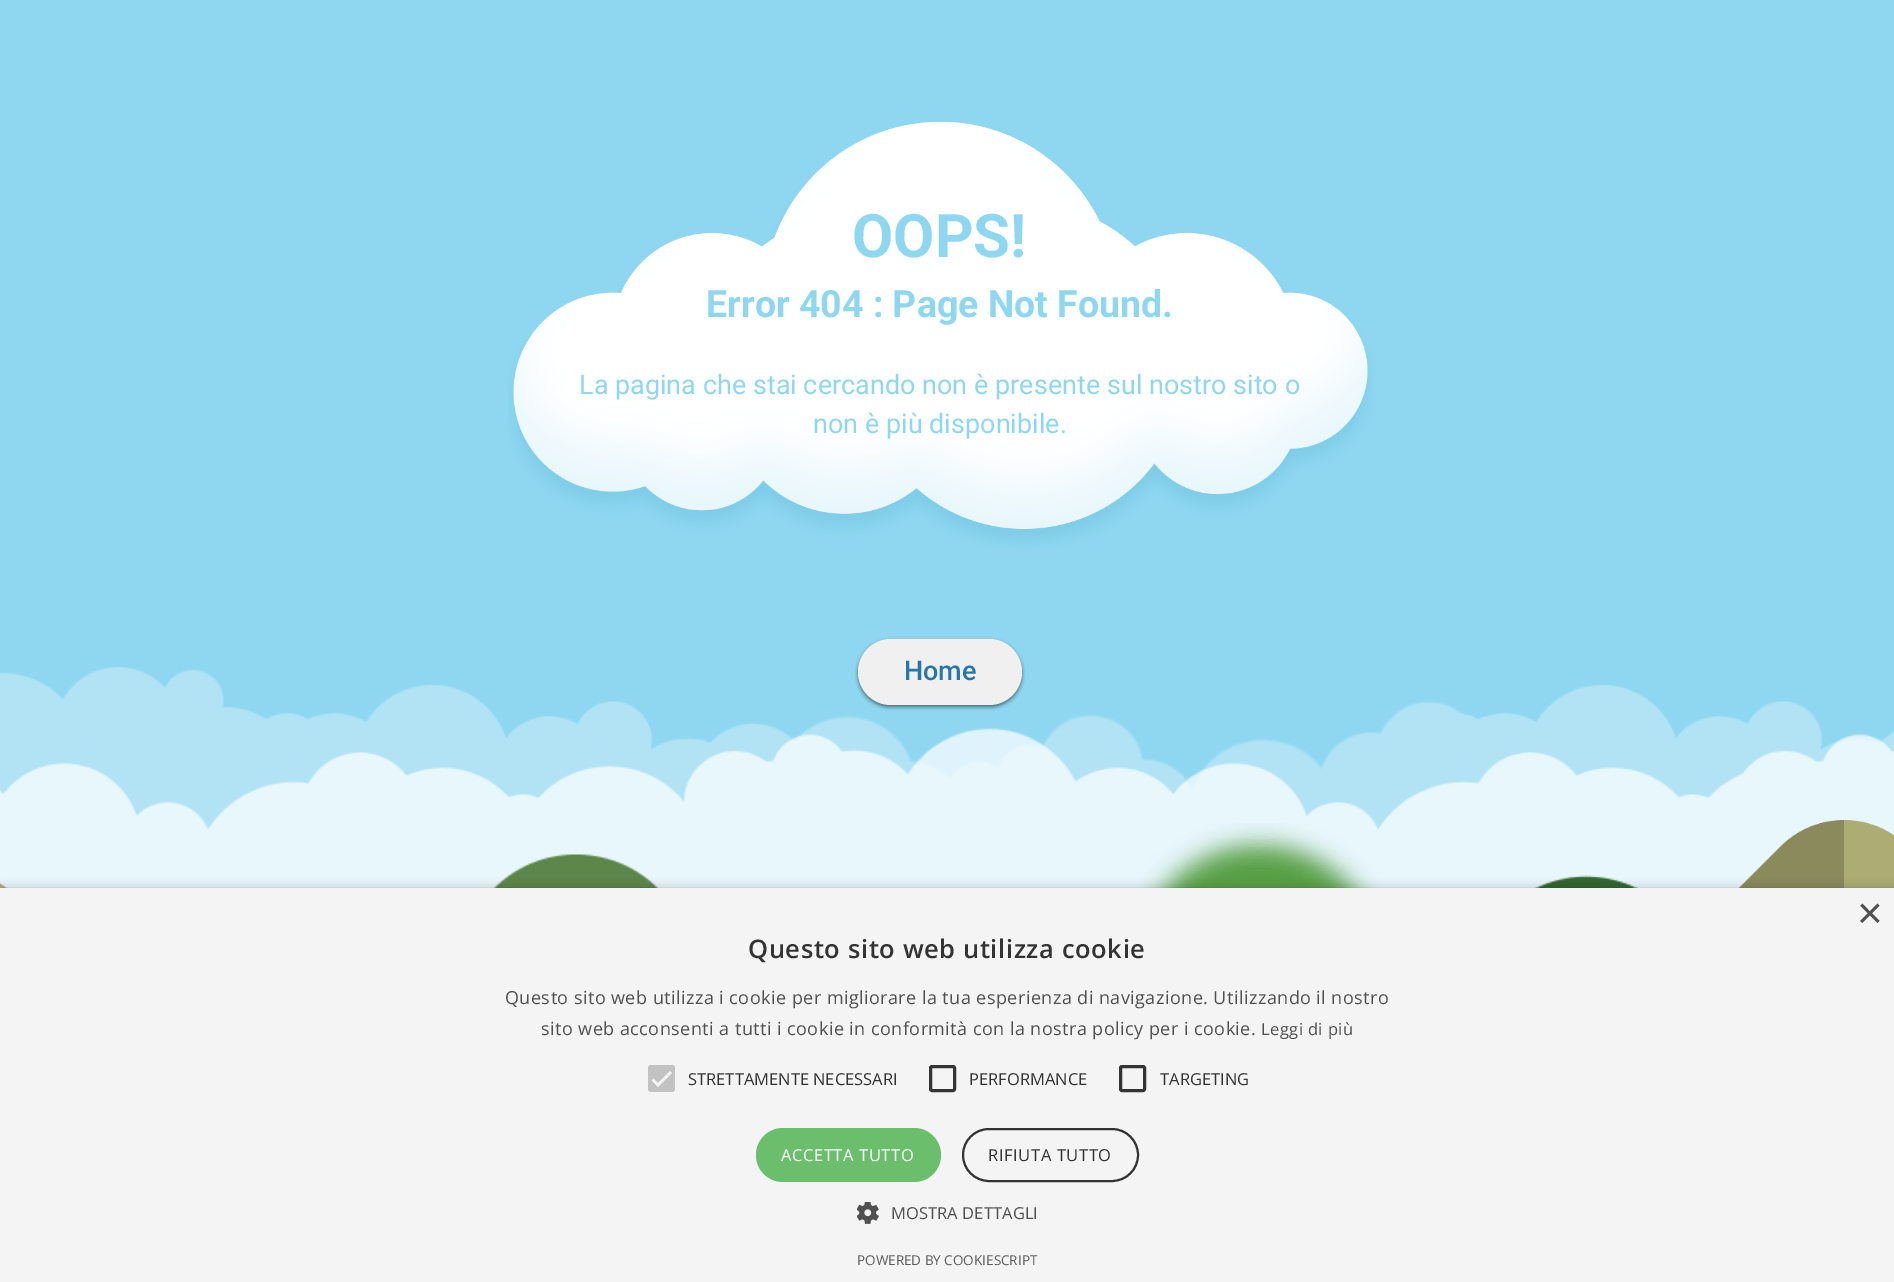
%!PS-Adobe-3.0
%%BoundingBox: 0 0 1894 1282
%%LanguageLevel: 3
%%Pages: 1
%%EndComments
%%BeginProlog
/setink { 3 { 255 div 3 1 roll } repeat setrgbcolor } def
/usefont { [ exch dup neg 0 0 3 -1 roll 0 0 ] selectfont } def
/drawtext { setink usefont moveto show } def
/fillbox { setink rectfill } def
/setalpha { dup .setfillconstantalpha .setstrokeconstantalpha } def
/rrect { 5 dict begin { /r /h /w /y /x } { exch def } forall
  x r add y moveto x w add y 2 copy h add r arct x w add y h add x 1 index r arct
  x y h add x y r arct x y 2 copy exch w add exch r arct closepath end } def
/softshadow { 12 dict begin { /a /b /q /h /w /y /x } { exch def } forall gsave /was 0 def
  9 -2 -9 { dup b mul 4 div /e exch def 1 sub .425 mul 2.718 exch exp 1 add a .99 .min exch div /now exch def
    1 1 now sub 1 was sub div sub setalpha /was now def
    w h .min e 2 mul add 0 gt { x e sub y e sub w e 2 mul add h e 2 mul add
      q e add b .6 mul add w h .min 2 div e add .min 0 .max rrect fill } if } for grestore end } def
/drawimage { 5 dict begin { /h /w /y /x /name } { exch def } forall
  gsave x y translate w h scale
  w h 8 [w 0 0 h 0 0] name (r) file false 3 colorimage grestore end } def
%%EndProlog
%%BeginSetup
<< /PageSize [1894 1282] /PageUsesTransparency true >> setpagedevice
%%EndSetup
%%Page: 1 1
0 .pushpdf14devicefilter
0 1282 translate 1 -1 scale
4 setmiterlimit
0 0 1894 1282 143 215 241 fillbox
(assets/img1.rgb) 508 121 865 427 drawimage
(OOPS!) 852 257 /Roboto-Bold 60 143 215 241 drawtext
(Error 404 : Page Not Found.) 706 317 /Roboto-Bold 37.5 143 215 241 drawtext
(La pagina che stai cercando non è presente sul nostro sito o) 579 394 /Roboto-Regular 27 143 215 241 drawtext
(non è più disponibile.) 813 433 /Roboto-Regular 27 143 215 241 drawtext
(assets/img2.rgb) 0 667 1894 221 drawimage
0 0 0 setink
858 641 164 66 33 2 0.5 softshadow
240 240 240 setink
858 639 164 66 33 rrect fill
0.15 setalpha
255 255 255 setink
891 640 moveto 988 640 lineto 1007 640 1021 654 1022 673 curveto 1022 672 lineto 1022 654 1007 639 989 639 curveto 891 639 lineto 873 639 858 654 858 672 curveto 858 673 lineto 859 654 873 640 891 640 curveto closepath fill
1 setalpha
(Home) 904 680 /Roboto-Medium 27 39 118 167 drawtext
(assets/img3.rgb) 0 728 1894 160 drawimage
(assets/img4.rgb) 0 882 8 6 drawimage
(assets/img5.rgb) 493 854 166 34 drawimage
(assets/img6.rgb) 1138 823 243 65 drawimage
(assets/img7.rgb) 1534 875 104 13 drawimage
(assets/img8.rgb) 1738 820 156 68 drawimage
0 0 0 setink
2 891 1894 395 0 6 0.35 softshadow
0 888 1894 394 244 244 244 fillbox
(×) 1857 928 /LiberationSans-Regular 44 80 80 80 drawtext
/OpenSans-SemiBold 25.5 usefont
51 51 51 setink
748 958 moveto 0.6 0 (Questo sito web utilizza cookie) ashow
/OpenSans-Regular 18 usefont
80 80 80 setink
505 1004 moveto 0.45 0 (Questo sito web utilizza i cookie per migliorare la tua esperienza di navigazione. Utilizzando il nostro) ashow
541 1035 moveto 0.45 0 (sito web acconsenti a tutti i cookie in conformità con la nostra policy per i cookie.) ashow
/OpenSans-Regular 16.5 usefont
1261 1035 moveto 0.45 0 (Leggi di più) ashow
194 194 194 setink
648 1065 27 27 3 rrect fill
244 244 244 setink
2.7 setlinewidth
652.5 1079.5 moveto 658 1085 lineto 671 1072 lineto stroke
(STRETTAMENTE NECESSARI) 688 1085 /OpenSans-Regular 16.5 51 51 51 drawtext
3 setlinewidth
930.5 1066.5 24 24 1.5 rrect stroke
(PERFORMANCE) 969 1085 /OpenSans-Regular 16.5 51 51 51 drawtext
1120.5 1066.5 24 24 1.5 rrect stroke
(TARGETING) 1160 1085 /OpenSans-Regular 16.5 51 51 51 drawtext
107 190 107 setink
756 1128 185 54 27 rrect fill
255 255 255 setink
781 1161 moveto 0.6 0 (ACCETTA TUTTO) ashow
51 51 51 setink
2 setlinewidth
963 1129 175 52 26 rrect stroke
988 1161 moveto 0.6 0 (RIFIUTA TUTTO) ashow
(assets/img9.rgb) 857 1202 22 22 drawimage
80 80 80 setink
891 1219 moveto 0.1 0 (MOSTRA DETTAGLI) ashow
(POWERED BY COOKIESCRIPT) 857 1265 /OpenSans-Regular 13.5 90 90 90 drawtext
.poppdf14devicefilter showpage
%%EOF
